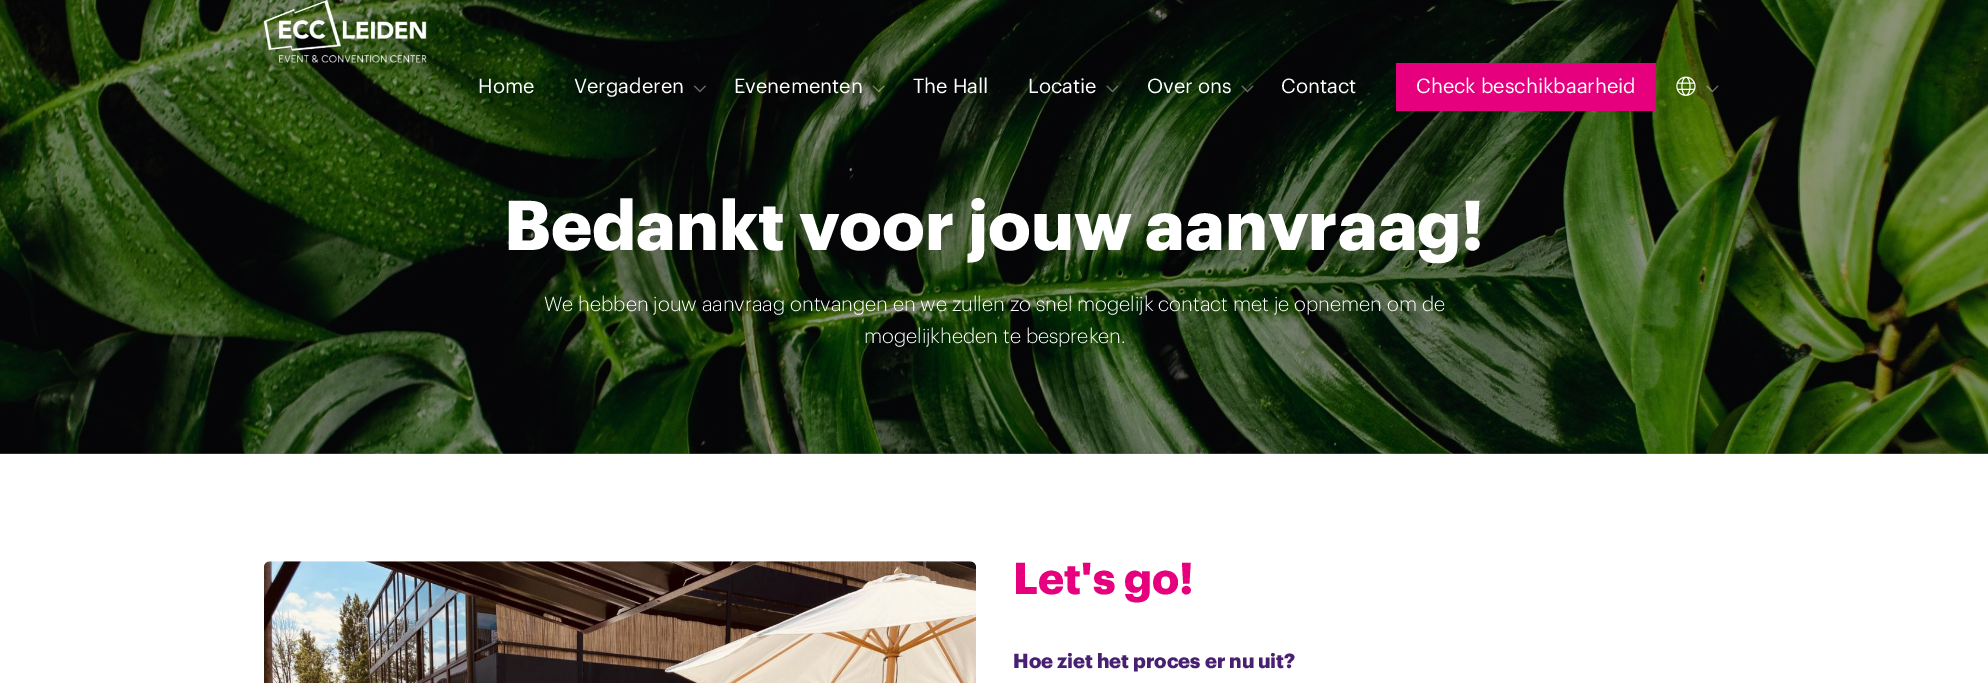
%!PS-Adobe-3.0
%%BoundingBox: 0 0 1988 683
%%LanguageLevel: 3
%%Pages: 1
%%EndComments
%%BeginProlog
/setink { 3 { 255 div 3 1 roll } repeat setrgbcolor } def
/usefont { [ exch dup neg 0 0 3 -1 roll 0 0 ] selectfont } def
/drawtext { setink usefont moveto show } def
/fillbox { setink rectfill } def
/drawimage { 5 dict begin { /h /w /y /x /name } { exch def } forall
  gsave x y translate w h scale
  w h 8 [w 0 0 h 0 0] name (r) file false 3 colorimage grestore end } def
%%EndProlog
%%BeginSetup
<< /PageSize [1988 683] >> setpagedevice
%%EndSetup
%%Page: 1 1
0 683 translate 1 -1 scale
4 setmiterlimit
0 0 1988 683 255 255 255 fillbox
(assets/img8.rgb) 0 0 1988 454 drawimage
(assets/img1.rgb) 263 0 164 63 drawimage
(Home) 478 93 /Graphik-Regular 20 255 255 255 drawtext
(Vergaderen) 574 93 /Graphik-Regular 20 255 255 255 drawtext
(assets/img2.rgb) 693 85 13 8 drawimage
(Evenementen) 734 93 /Graphik-Regular 20 255 255 255 drawtext
(assets/img3.rgb) 872 85 13 8 drawimage
(The Hall) 913 93 /Graphik-Regular 20 255 255 255 drawtext
(Locatie) 1028 93 /Graphik-Regular 20 255 255 255 drawtext
(assets/img4.rgb) 1106 85 13 8 drawimage
(Over ons) 1147 93 /Graphik-Regular 20 255 255 255 drawtext
(assets/img5.rgb) 1241 85 13 8 drawimage
(Contact) 1281 93 /Graphik-Regular 20 255 255 255 drawtext
1396 63 260 48 230 0 126 fillbox
(Check beschikbaarheid) 1416 93 /Graphik-Regular 20 255 255 255 drawtext
(assets/img6.rgb) 1676 76 20 20 drawimage
(assets/img7.rgb) 1706 85 13 8 drawimage
(Bedankt voor jouw aanvraag!) 504 250 /Graphik-Bold 68.75 255 255 255 drawtext
(We hebben jouw aanvraag ontvangen en we zullen zo snel mogelijk contact met je opnemen om de) 544 311 /Graphik-Light 20 255 255 255 drawtext
(mogelijkheden te bespreken.) 864 343 /Graphik-Light 20 255 255 255 drawtext
(assets/img9.rgb) 264 561 712 122 drawimage
(Let's go!) 1013 594 /Graphik-Bold 43.75 230 0 126 drawtext
(Hoe ziet het proces er nu uit?) 1013 668 /Graphik-Bold 20 73 32 113 drawtext
showpage
%%EOF
